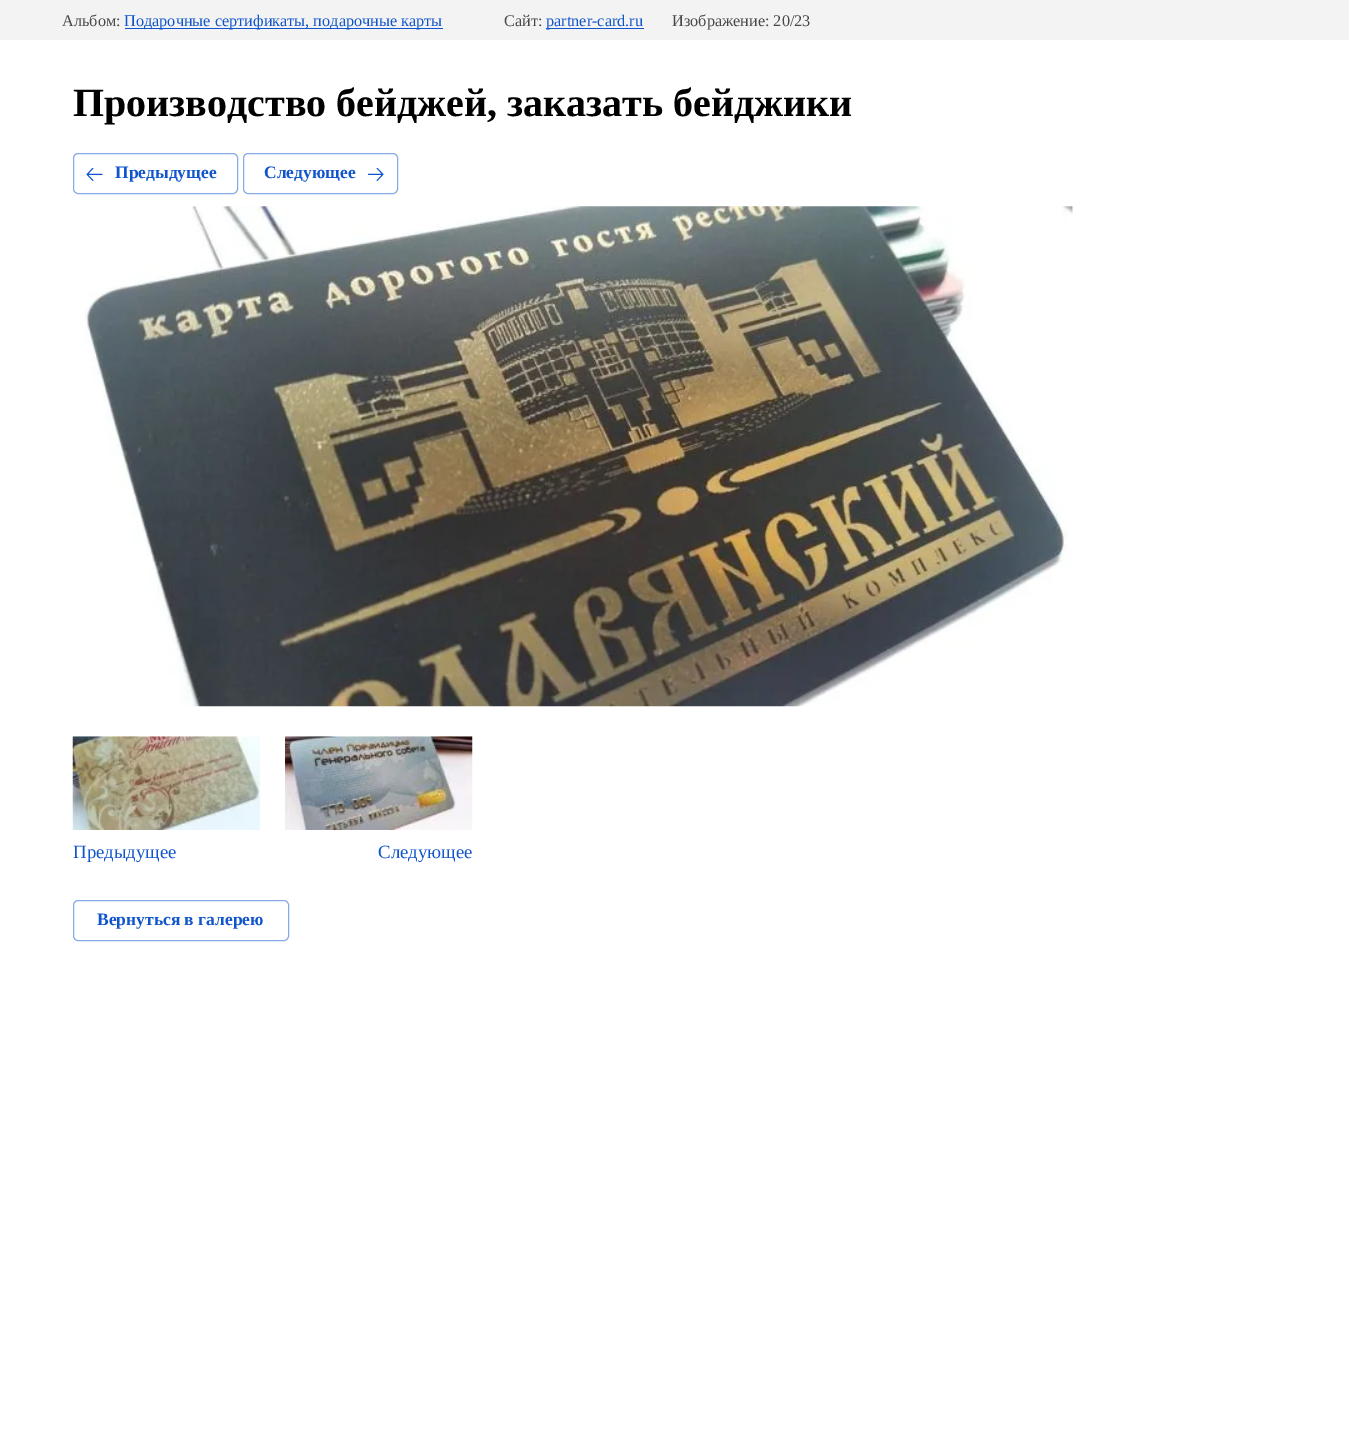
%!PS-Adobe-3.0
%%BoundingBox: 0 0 1349 1442
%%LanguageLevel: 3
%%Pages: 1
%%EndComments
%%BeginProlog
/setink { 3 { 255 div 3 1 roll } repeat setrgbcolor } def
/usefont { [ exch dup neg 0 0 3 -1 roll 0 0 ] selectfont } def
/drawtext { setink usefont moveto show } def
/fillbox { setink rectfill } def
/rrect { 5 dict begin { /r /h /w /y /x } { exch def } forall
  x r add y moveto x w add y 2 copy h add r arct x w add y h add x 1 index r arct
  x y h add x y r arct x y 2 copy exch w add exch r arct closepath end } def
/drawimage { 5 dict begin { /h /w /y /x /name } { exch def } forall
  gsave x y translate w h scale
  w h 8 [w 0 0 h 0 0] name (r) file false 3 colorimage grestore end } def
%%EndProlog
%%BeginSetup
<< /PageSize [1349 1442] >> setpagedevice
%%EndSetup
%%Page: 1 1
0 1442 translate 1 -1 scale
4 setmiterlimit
0 0 1349 1442 255 255 255 fillbox
0 0 1349 40 243 243 243 fillbox
(Альбом:) 62 26 /LiberationSerif-Regular 16.25 72 72 72 drawtext
125 28 318 1 17 85 204 fillbox
(Подарочные сертификаты, подарочные карты) 124 26 /LiberationSerif-Regular 16.25 17 85 204 drawtext
(Сайт:) 504 26 /LiberationSerif-Regular 16.25 72 72 72 drawtext
546 28 98 1 17 85 204 fillbox
(partner-card.ru) 546 26 /LiberationSerif-Regular 16.25 17 85 204 drawtext
(Изображение: 20/23) 672 26 /LiberationSerif-Regular 16.25 72 72 72 drawtext
(Производство бейджей, заказать бейджики) 73 116 /LiberationSerif-Bold 40 0 0 0 drawtext
136 170 230 setink
73.5 153.5 164 40 4.5 rrect stroke
(assets/img1.rgb) 86 168 17 13 drawimage
(Предыдущее) 115 178 /LiberationSerif-Bold 17.5 17 85 204 drawtext
136 170 230 setink
243.5 153.5 154 40 4.5 rrect stroke
(Следующее) 264 178 /LiberationSerif-Bold 17.5 17 85 204 drawtext
(assets/img2.rgb) 368 168 16 13 drawimage
(assets/img3.rgb) 84 206 989 501 drawimage
(assets/img4.rgb) 72 736 188 94 drawimage
(Предыдущее) 73 858 /LiberationSerif-Regular 18.75 17 85 204 drawtext
(assets/img5.rgb) 285 736 188 94 drawimage
(Следующее) 378 858 /LiberationSerif-Regular 18.75 17 85 204 drawtext
136 170 230 setink
73.5 900.5 215 40 4.5 rrect stroke
(Вернуться в галерею) 97 925 /LiberationSerif-Bold 17.5 17 85 204 drawtext
showpage
%%EOF
